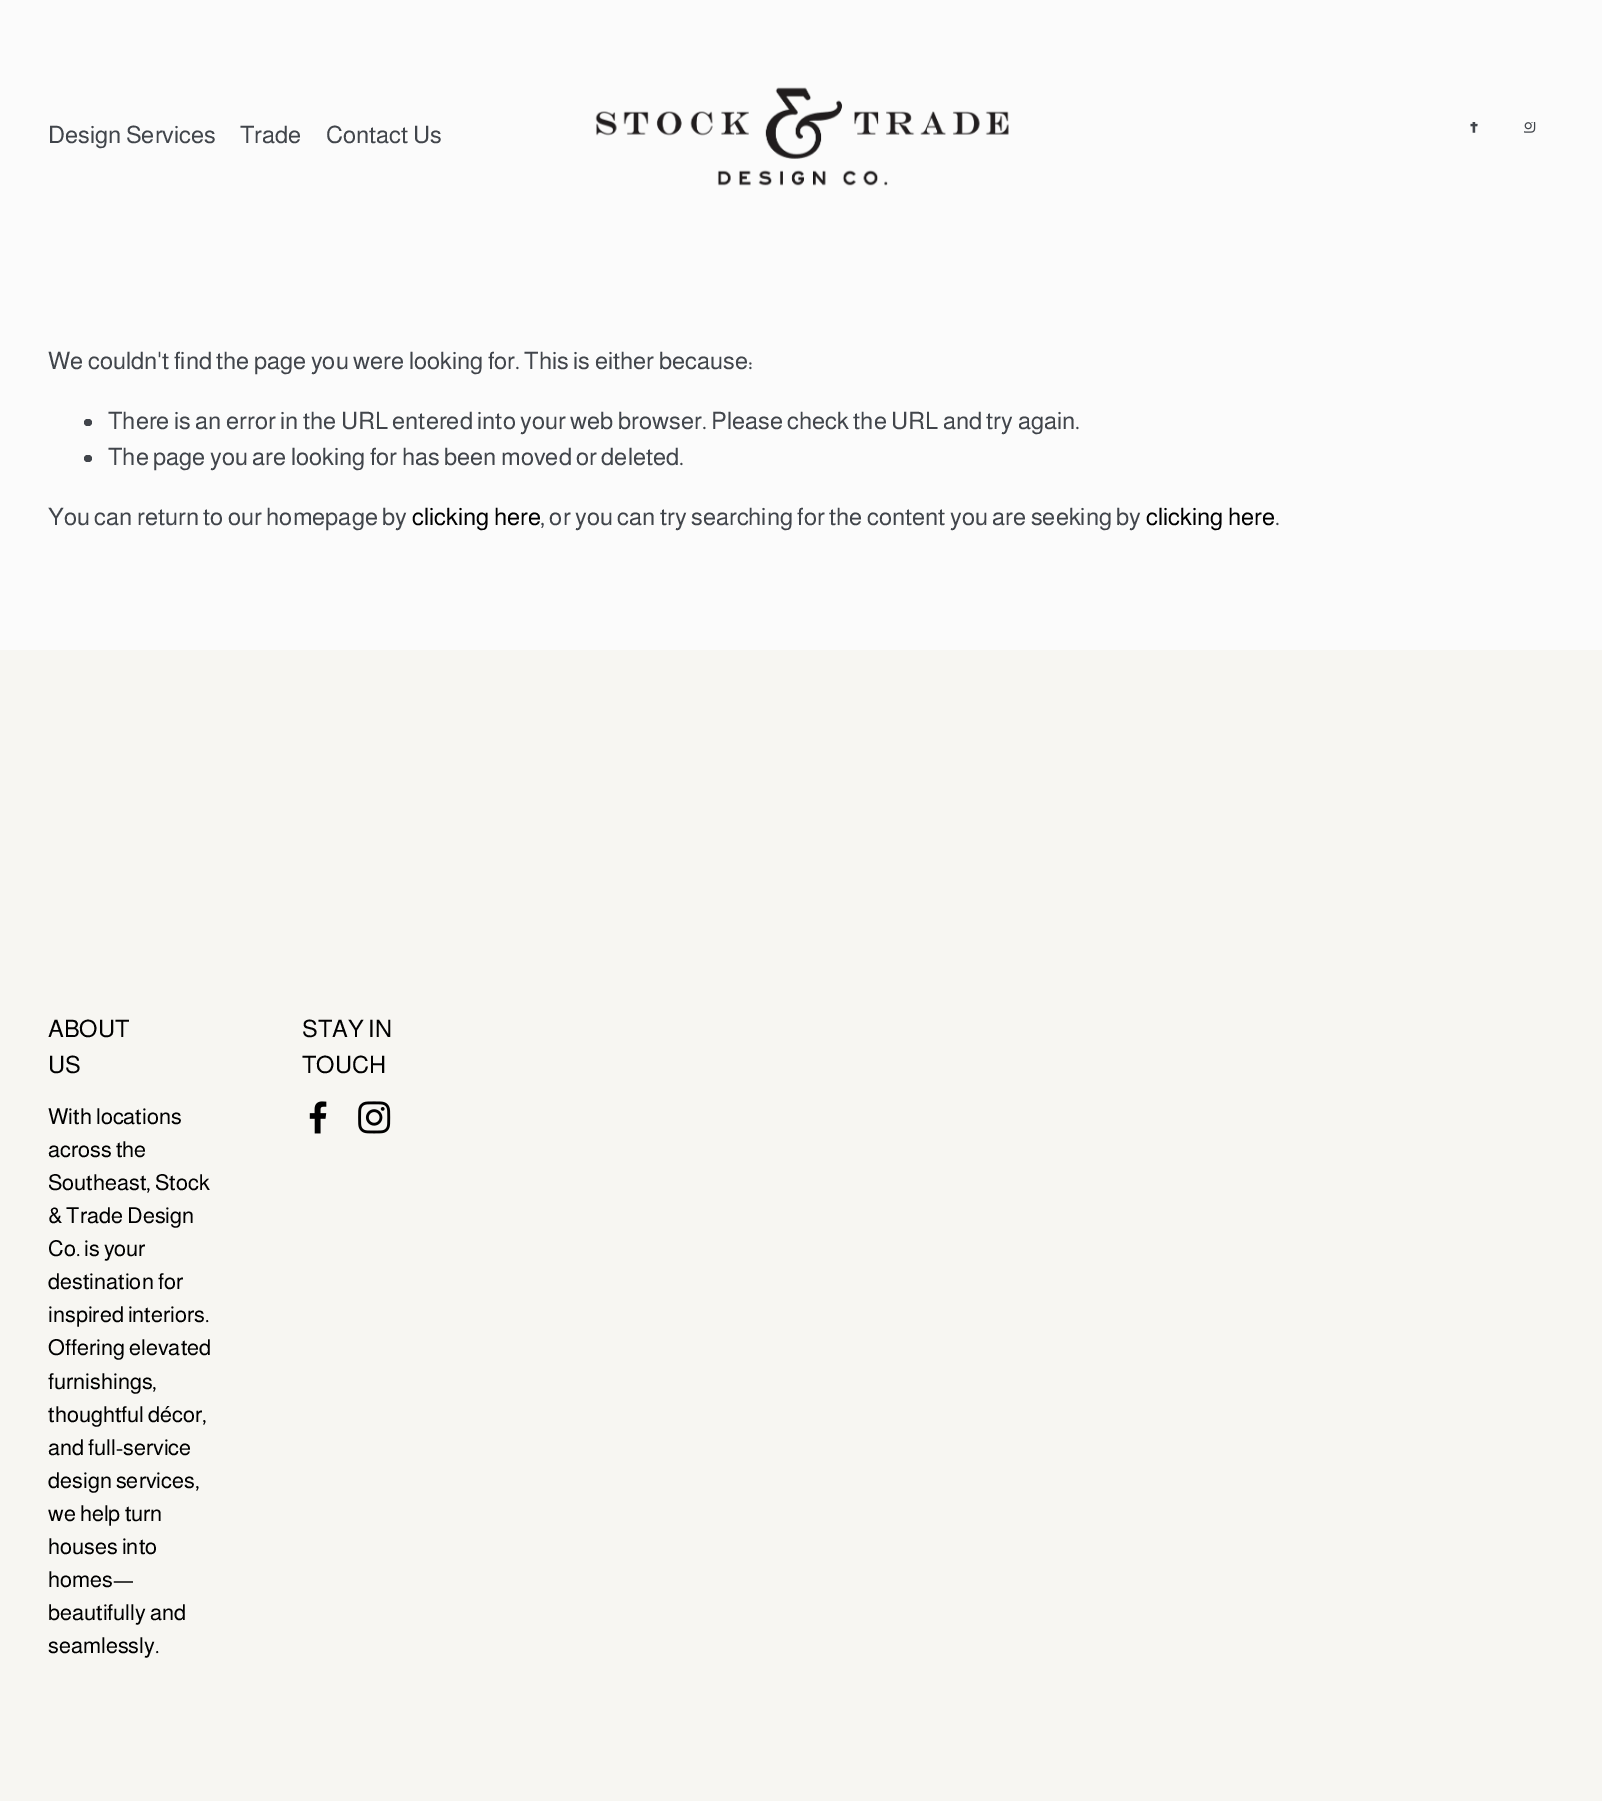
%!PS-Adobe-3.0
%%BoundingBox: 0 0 1602 1801
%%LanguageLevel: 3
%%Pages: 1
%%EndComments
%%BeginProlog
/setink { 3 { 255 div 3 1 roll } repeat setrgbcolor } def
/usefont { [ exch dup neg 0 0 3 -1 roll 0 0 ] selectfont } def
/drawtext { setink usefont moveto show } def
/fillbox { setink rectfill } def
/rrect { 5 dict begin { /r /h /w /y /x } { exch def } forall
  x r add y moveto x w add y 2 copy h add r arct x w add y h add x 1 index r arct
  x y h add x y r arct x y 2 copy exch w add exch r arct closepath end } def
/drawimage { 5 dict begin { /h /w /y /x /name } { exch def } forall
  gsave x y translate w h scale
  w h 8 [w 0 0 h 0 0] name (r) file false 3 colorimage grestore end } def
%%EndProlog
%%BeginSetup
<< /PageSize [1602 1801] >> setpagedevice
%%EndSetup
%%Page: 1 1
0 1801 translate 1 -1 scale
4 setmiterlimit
0 0 1602 1801 251 251 251 fillbox
(Design Services) 48 143 /Almarai-Regular 24 65 69 75 drawtext
(Trade) 240 143 /Almarai-Regular 24 65 69 75 drawtext
(Contact Us) 326 143 /Almarai-Regular 24 65 69 75 drawtext
(assets/img1.rgb) 595 87 414 99 drawimage
(assets/img2.rgb) 1470 122 8 11 drawimage
(assets/img3.rgb) 1524 122 12 11 drawimage
(We couldn't find the page you were looking for. This is either because:) 48 369 /Almarai-Regular 24 65 69 75 drawtext
84 419 8 7 3.5 rrect fill
(There is an error in the URL entered into your web browser. Please check the URL and try again.) 108 429 /Almarai-Regular 24 65 69 75 drawtext
84 455 8 7 3.5 rrect fill
(The page you are looking for has been moved or deleted.) 108 465 /Almarai-Regular 24 65 69 75 drawtext
(You can return to our homepage by) 48 525 /Almarai-Regular 24 65 69 75 drawtext
(clicking here) 412 525 /Almarai-Regular 24 0 0 0 drawtext
(, or you can try searching for the content you are seeking by) 540 525 /Almarai-Regular 24 65 69 75 drawtext
(clicking here) 1146 525 /Almarai-Regular 24 0 0 0 drawtext
(.) 1275 525 /Almarai-Regular 24 65 69 75 drawtext
0 650 1602 1151 247 246 242 fillbox
(ABOUT) 48 1037 /Almarai-Regular 24 0 0 0 drawtext
(US) 48 1073 /Almarai-Regular 24 0 0 0 drawtext
(STAY IN) 302 1037 /Almarai-Regular 24 0 0 0 drawtext
(TOUCH) 302 1073 /Almarai-Regular 24 0 0 0 drawtext
(With locations) 48 1124 /Almarai-Regular 22 0 0 0 drawtext
(across the) 48 1157 /Almarai-Regular 22 0 0 0 drawtext
(Southeast, Stock) 48 1190 /Almarai-Regular 22 0 0 0 drawtext
(& Trade Design) 48 1223 /Almarai-Regular 22 0 0 0 drawtext
(Co. is your) 48 1256 /Almarai-Regular 22 0 0 0 drawtext
(destination for) 48 1289 /Almarai-Regular 22 0 0 0 drawtext
(inspired interiors.) 48 1322 /Almarai-Regular 22 0 0 0 drawtext
(Offering elevated) 48 1355 /Almarai-Regular 22 0 0 0 drawtext
(furnishings,) 48 1389 /Almarai-Regular 22 0 0 0 drawtext
(thoughtful décor,) 48 1422 /Almarai-Regular 22 0 0 0 drawtext
(and full-service) 48 1455 /Almarai-Regular 22 0 0 0 drawtext
(design services,) 48 1488 /Almarai-Regular 22 0 0 0 drawtext
(we help turn) 48 1521 /Almarai-Regular 22 0 0 0 drawtext
(houses into) 48 1554 /Almarai-Regular 22 0 0 0 drawtext
(homes—) 48 1587 /Almarai-Regular 22 0 0 0 drawtext
(beautifully and) 48 1620 /Almarai-Regular 22 0 0 0 drawtext
(seamlessly.) 48 1653 /Almarai-Regular 22 0 0 0 drawtext
(assets/img4.rgb) 309 1101 18 33 drawimage
(assets/img5.rgb) 358 1101 33 33 drawimage
showpage
%%EOF
